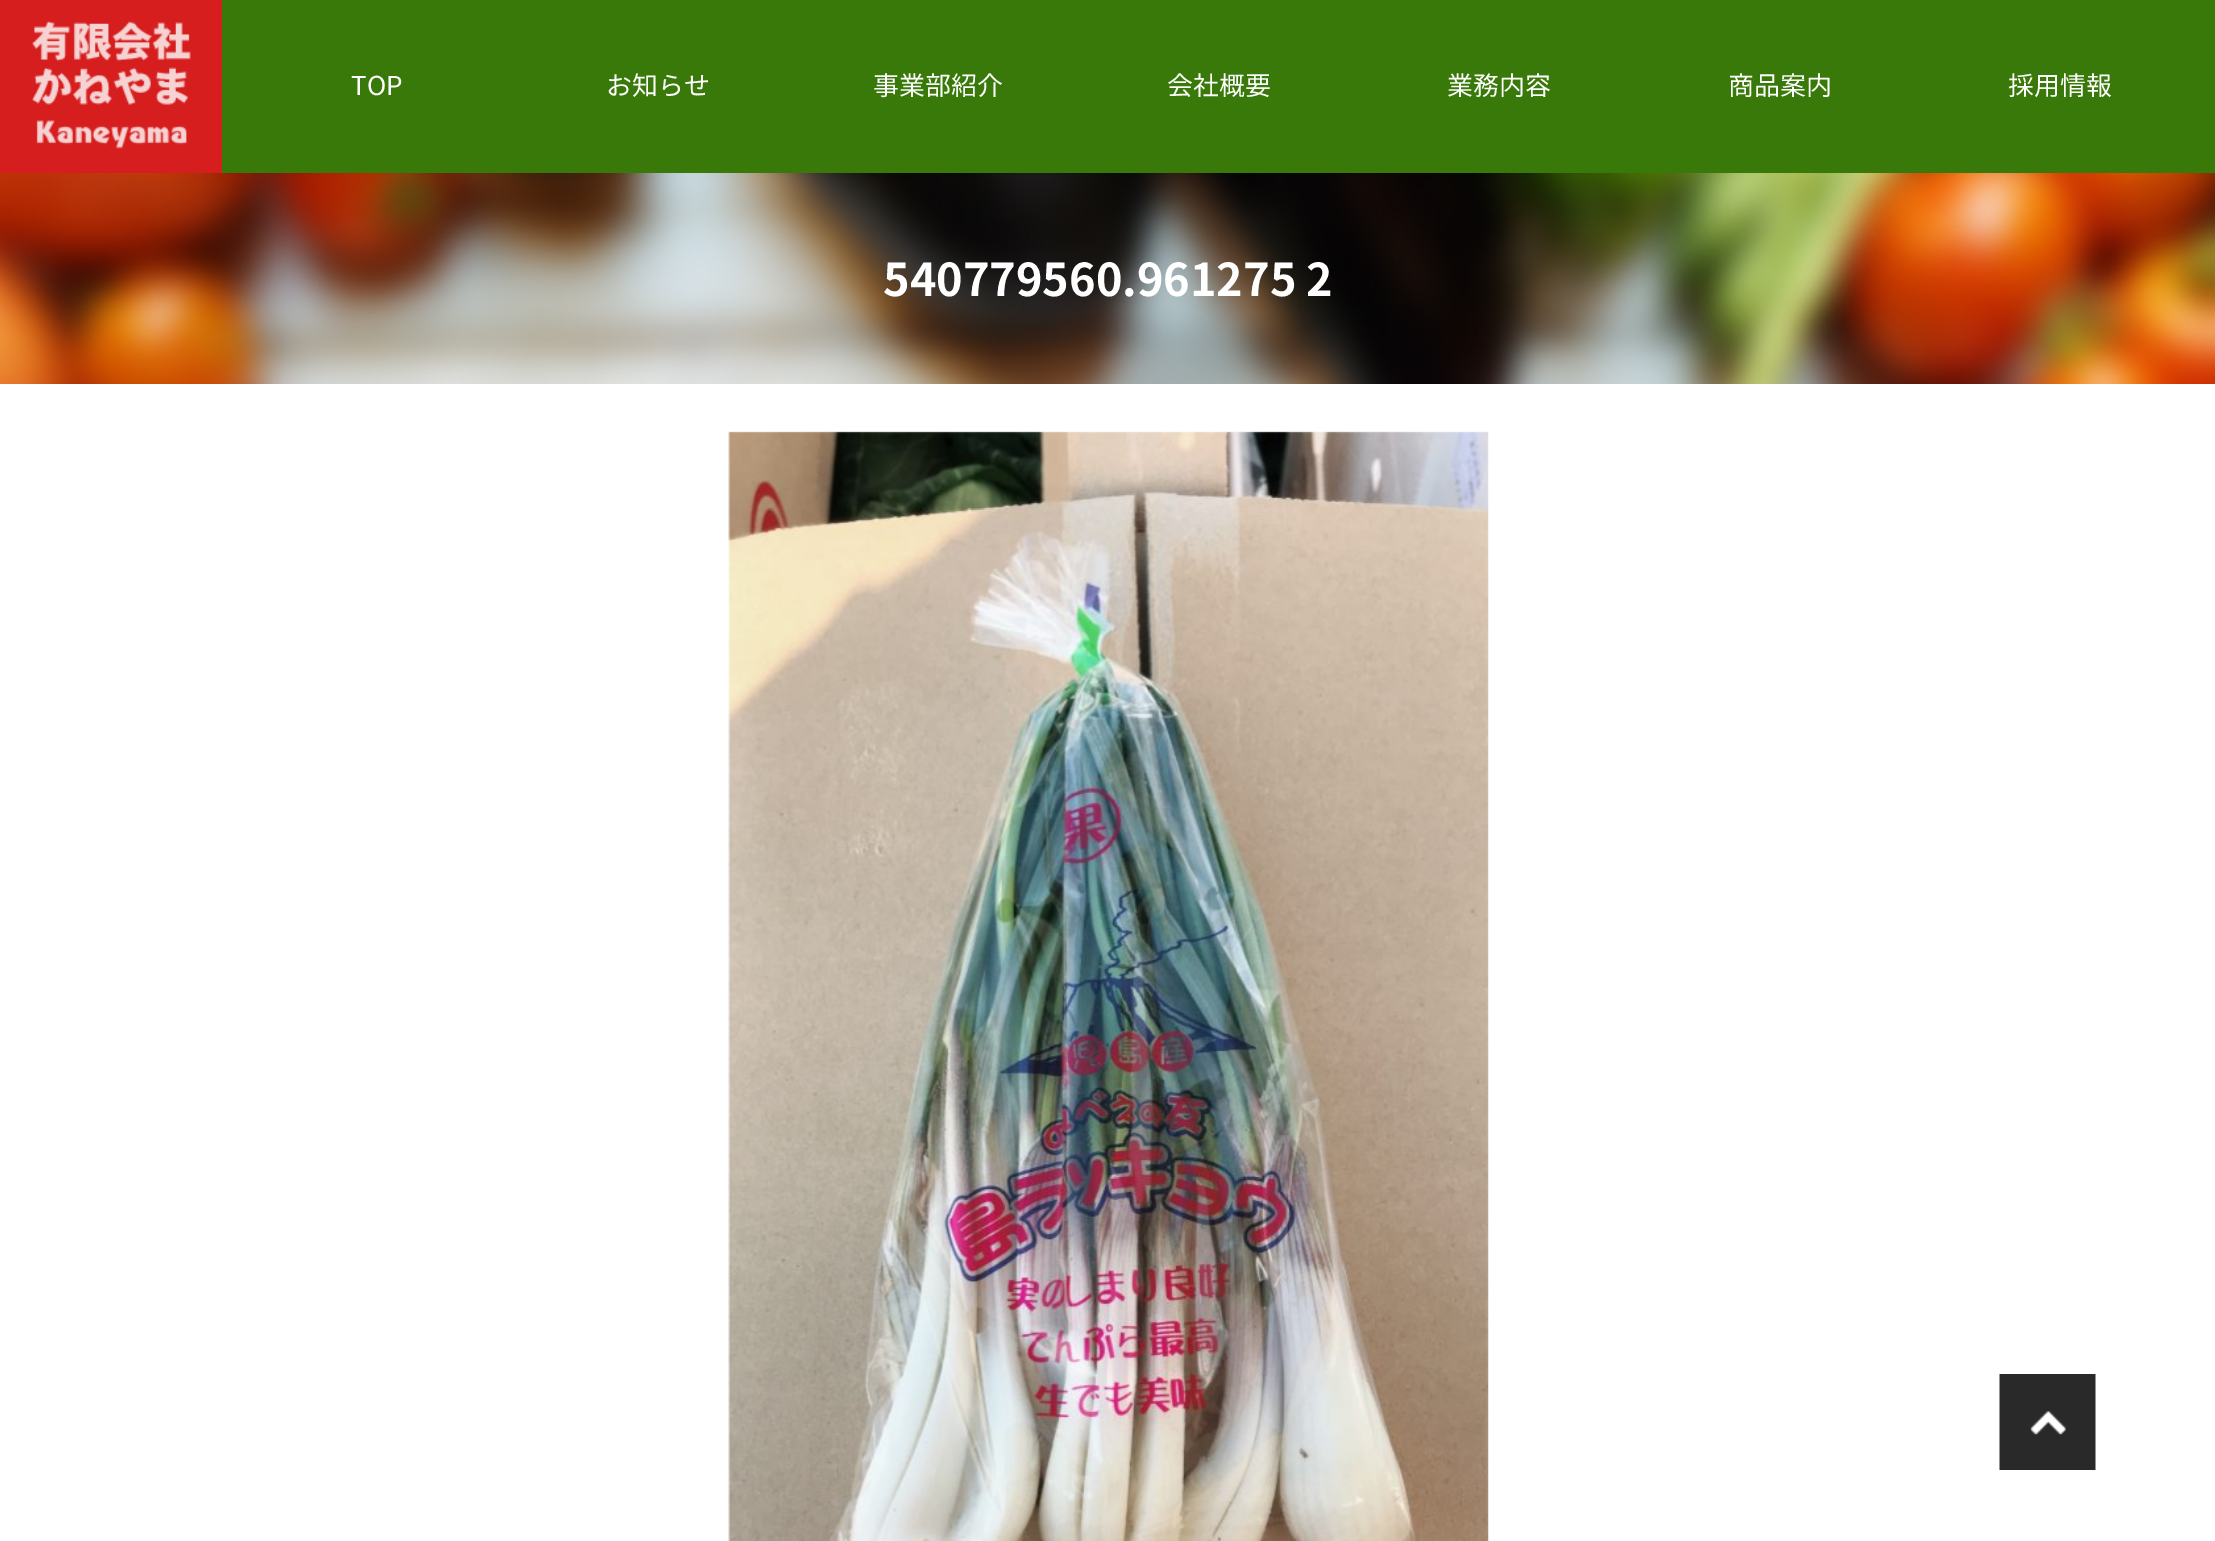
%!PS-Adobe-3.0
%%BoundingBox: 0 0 2215 1541
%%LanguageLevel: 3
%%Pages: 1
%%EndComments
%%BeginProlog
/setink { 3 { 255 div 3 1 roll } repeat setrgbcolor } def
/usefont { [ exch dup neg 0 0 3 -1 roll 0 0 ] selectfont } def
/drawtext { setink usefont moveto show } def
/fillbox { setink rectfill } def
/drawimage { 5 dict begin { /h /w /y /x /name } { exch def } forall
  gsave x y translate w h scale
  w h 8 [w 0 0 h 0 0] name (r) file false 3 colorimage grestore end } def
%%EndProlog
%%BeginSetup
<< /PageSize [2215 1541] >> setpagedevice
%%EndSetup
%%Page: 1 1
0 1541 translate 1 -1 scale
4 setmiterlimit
0 0 2215 1541 255 255 255 fillbox
0 0 222 173 215 30 30 fillbox
(assets/img1.rgb) 31 21 160 128 drawimage
222 0 1993 173 57 121 9 fillbox
(TOP) 351 95 /NotoSansJP-Regular 26 255 255 255 drawtext
(お知らせ) 606 95 /NotoSansJP-Regular 26 255 255 255 drawtext
(事業部紹介) 873 95 /NotoSansJP-Regular 26 255 255 255 drawtext
(会社概要) 1167 95 /NotoSansJP-Regular 26 255 255 255 drawtext
(業務内容) 1447 95 /NotoSansJP-Regular 26 255 255 255 drawtext
(商品案内) 1728 95 /NotoSansJP-Regular 26 255 255 255 drawtext
(採用情報) 2008 95 /NotoSansJP-Regular 26 255 255 255 drawtext
(assets/img2.rgb) 0 173 2215 211 drawimage
(540779560.961275 2) 883 296 /NotoSansJP-Bold 45.1 255 255 255 drawtext
(assets/img3.rgb) 728 431 761 1110 drawimage
(assets/img4.rgb) 1999 1374 97 96 drawimage
showpage
%%EOF
